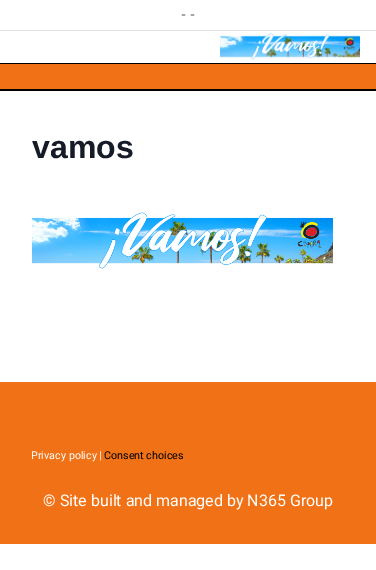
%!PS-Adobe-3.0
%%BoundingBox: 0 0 376 570
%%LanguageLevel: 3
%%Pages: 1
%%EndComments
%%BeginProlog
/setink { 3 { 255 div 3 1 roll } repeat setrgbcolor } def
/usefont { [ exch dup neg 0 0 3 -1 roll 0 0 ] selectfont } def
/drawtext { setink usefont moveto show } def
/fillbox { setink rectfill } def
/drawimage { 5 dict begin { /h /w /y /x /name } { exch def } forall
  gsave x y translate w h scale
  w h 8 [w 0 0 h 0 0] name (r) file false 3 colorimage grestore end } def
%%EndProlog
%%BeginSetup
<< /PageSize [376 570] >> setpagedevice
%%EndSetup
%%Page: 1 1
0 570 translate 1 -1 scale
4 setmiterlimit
0 0 376 570 255 255 255 fillbox
0 30 376 1 224 224 224 fillbox
(- -) 181 19 /LiberationSans-Regular 15 85 85 85 drawtext
(assets/img1.rgb) 220 33 140 27 drawimage
0 64 376 25 241 114 22 fillbox
0 63 376 1 0 0 0 fillbox
0 89 376 2 0 0 0 fillbox
(vamos) 32 158 /LiberationSans-Bold 32 22 27 40 drawtext
(assets/img2.rgb) 32 212 301 57 drawimage
0 382 376 162 241 114 22 fillbox
(Privacy policy |) 31 459 /Heebo-Regular 10.75 255 255 255 drawtext
(Consent choices) 104 459 /Heebo-Regular 10.75 0 0 0 drawtext
(© Site built and managed by N365 Group) 43 506 /Heebo-Regular 16 255 255 255 drawtext
showpage
%%EOF
